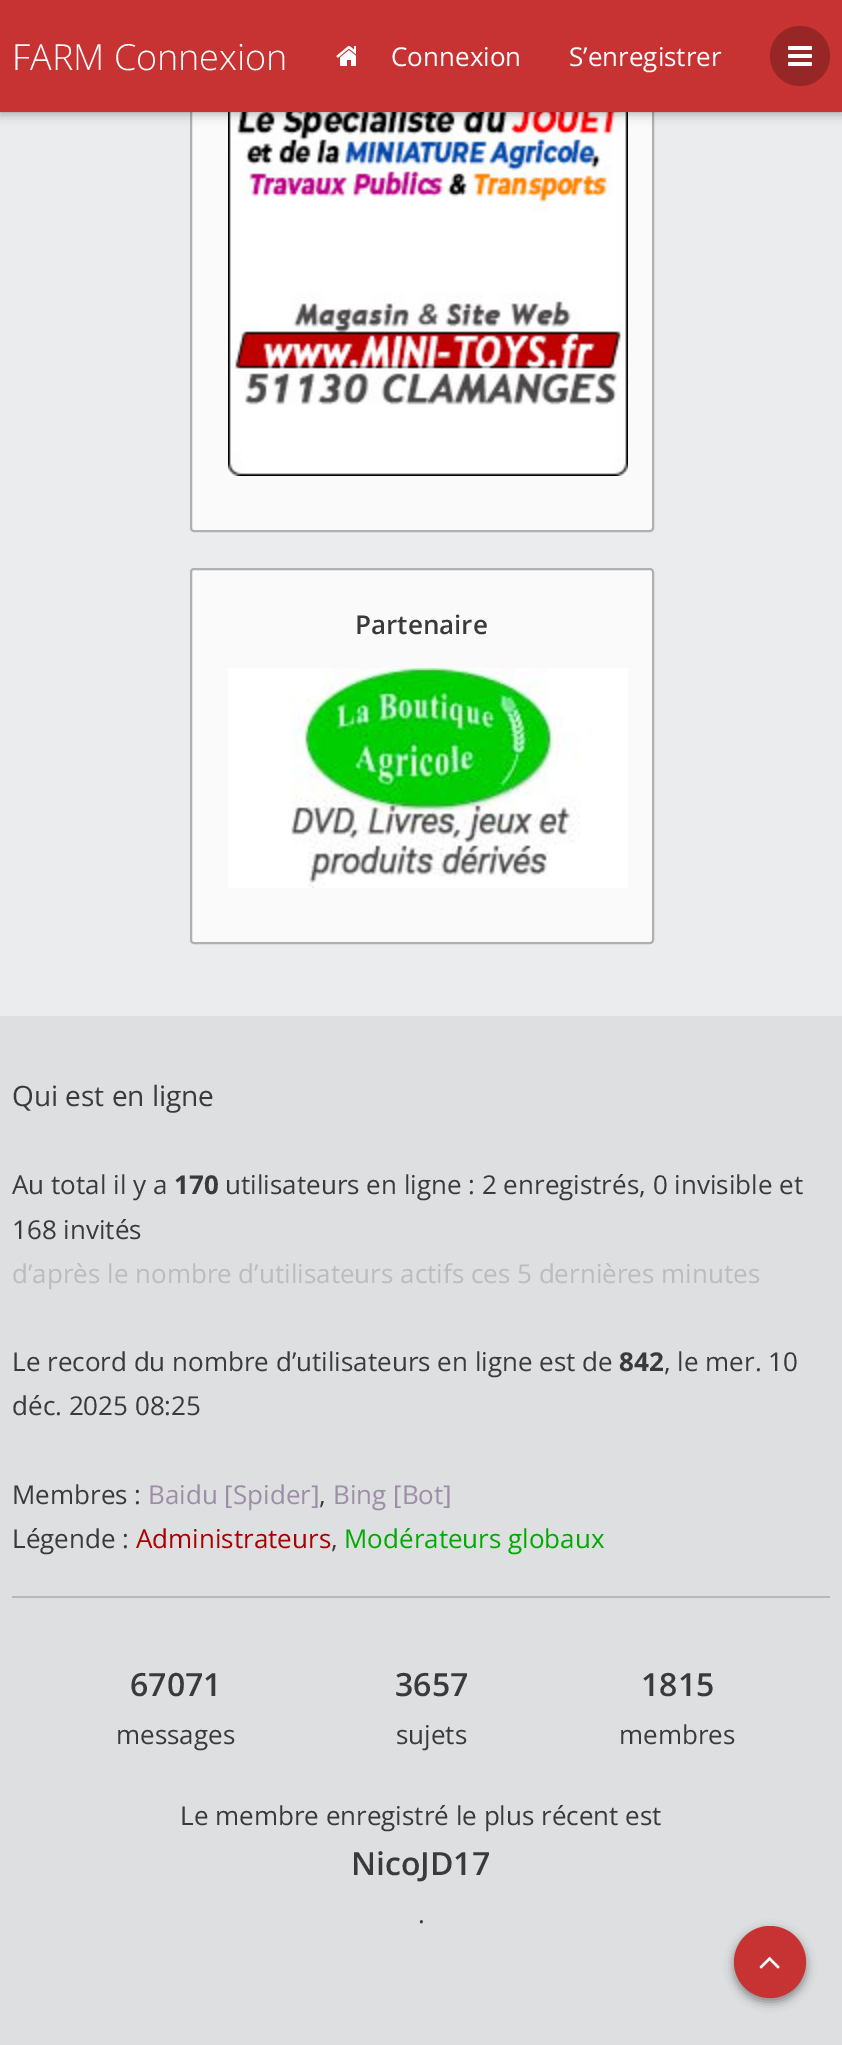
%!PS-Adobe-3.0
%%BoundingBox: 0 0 842 2045
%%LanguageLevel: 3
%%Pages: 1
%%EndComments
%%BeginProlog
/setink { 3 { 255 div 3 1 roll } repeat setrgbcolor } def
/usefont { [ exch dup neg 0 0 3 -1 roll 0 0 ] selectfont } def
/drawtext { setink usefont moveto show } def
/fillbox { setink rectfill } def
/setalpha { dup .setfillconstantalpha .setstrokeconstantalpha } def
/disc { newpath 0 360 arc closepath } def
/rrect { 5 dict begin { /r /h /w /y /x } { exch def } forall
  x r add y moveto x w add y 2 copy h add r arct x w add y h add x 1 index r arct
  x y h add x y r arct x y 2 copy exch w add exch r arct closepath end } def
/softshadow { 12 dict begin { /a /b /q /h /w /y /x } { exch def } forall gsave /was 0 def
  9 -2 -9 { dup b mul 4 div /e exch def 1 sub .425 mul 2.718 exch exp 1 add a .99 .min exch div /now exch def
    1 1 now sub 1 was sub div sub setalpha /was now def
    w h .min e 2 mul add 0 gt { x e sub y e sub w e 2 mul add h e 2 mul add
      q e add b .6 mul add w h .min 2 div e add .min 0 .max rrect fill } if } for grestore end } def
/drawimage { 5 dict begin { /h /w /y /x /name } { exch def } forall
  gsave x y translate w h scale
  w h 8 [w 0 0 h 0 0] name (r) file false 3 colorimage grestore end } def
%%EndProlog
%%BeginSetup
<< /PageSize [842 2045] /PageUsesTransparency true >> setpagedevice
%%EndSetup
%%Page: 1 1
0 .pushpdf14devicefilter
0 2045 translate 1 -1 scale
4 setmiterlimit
0 0 842 2045 235 236 237 fillbox
250 250 250 setink
191 -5 462 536 3 rrect gsave fill grestore
176 176 176 setink
2 setlinewidth
stroke
(assets/img3.rgb) 228 112 400 364 drawimage
0 0 0 setink
0 0 842 112 0 6 0.42 softshadow
0 0 842 112 199 50 50 fillbox
(FARM Connexion) 12 70 /OpenSans-Light 36 255 255 255 drawtext
(assets/img1.rgb) 336 46 20 20 drawimage
(Connexion) 391 66 /OpenSans-Regular 26 255 255 255 drawtext
(S’enregistrer) 569 66 /OpenSans-Regular 26 255 255 255 drawtext
151 38 38 setink
800 56 30 disc fill
(assets/img2.rgb) 788 46 24 20 drawimage
250 250 250 setink
191 569 462 374 3 rrect gsave fill grestore
176 176 176 setink
stroke
(Partenaire) 355 634 /OpenSans-SemiBold 26 58 58 59 drawtext
(assets/img4.rgb) 228 668 400 220 drawimage
0 1016 842 1029 221 223 224 fillbox
(Qui est en ligne) 12 1106 /OpenSans-Regular 28 58 58 59 drawtext
(Au total il y a) 12 1194 /OpenSans-Regular 26 58 58 59 drawtext
(170) 174 1194 /OpenSans-Bold 26 58 58 59 drawtext
(utilisateurs en ligne : 2 enregistrés, 0 invisible et) 225 1194 /OpenSans-Regular 26 58 58 59 drawtext
(168 invités) 12 1239 /OpenSans-Regular 26 58 58 59 drawtext
(d’après le nombre d’utilisateurs actifs ces 5 dernières minutes) 12 1283 /OpenSans-Regular 26 188 188 188 drawtext
(Le record du nombre d’utilisateurs en ligne est de) 12 1371 /OpenSans-Regular 26 58 58 59 drawtext
(842) 619 1371 /OpenSans-Bold 26 58 58 59 drawtext
(, le mer. 10) 664 1371 /OpenSans-Regular 26 58 58 59 drawtext
(déc. 2025 08:25) 12 1415 /OpenSans-Regular 26 58 58 59 drawtext
(Membres :) 12 1504 /OpenSans-Regular 26 58 58 59 drawtext
(Baidu [Spider]) 148 1504 /OpenSans-Regular 26 158 141 167 drawtext
(,) 319 1504 /OpenSans-Regular 26 58 58 59 drawtext
(Bing [Bot]) 333 1504 /OpenSans-Regular 26 158 141 167 drawtext
(Légende :) 12 1548 /OpenSans-Regular 26 58 58 59 drawtext
(Administrateurs) 136 1548 /OpenSans-Regular 26 170 0 0 drawtext
(,) 331 1548 /OpenSans-Regular 26 58 58 59 drawtext
(Modérateurs globaux) 344 1548 /OpenSans-Regular 26 0 170 0 drawtext
12 1596 818 2 181 183 184 fillbox
(67071) 130 1696 /OpenSans-SemiBold 32 58 58 59 drawtext
(messages) 116 1744 /OpenSans-Regular 26 58 58 59 drawtext
(3657) 395 1696 /OpenSans-SemiBold 32 58 58 59 drawtext
(sujets) 396 1744 /OpenSans-Regular 26 58 58 59 drawtext
(1815) 641 1696 /OpenSans-SemiBold 32 58 58 59 drawtext
(membres) 619 1744 /OpenSans-Regular 26 58 58 59 drawtext
(Le membre enregistré le plus récent est) 180 1825 /OpenSans-Regular 26 58 58 59 drawtext
(NicoJD17) 351 1875 /OpenSans-SemiBold 32 58 58 59 drawtext
(.) 418 1923 /OpenSans-Regular 26 58 58 59 drawtext
0 0 0 setink
734 1930 72 72 36 5 0.42 softshadow
199 50 50 setink
770 1962 36 disc fill
(assets/img5.rgb) 759 1957 21 12 drawimage
.poppdf14devicefilter showpage
%%EOF
